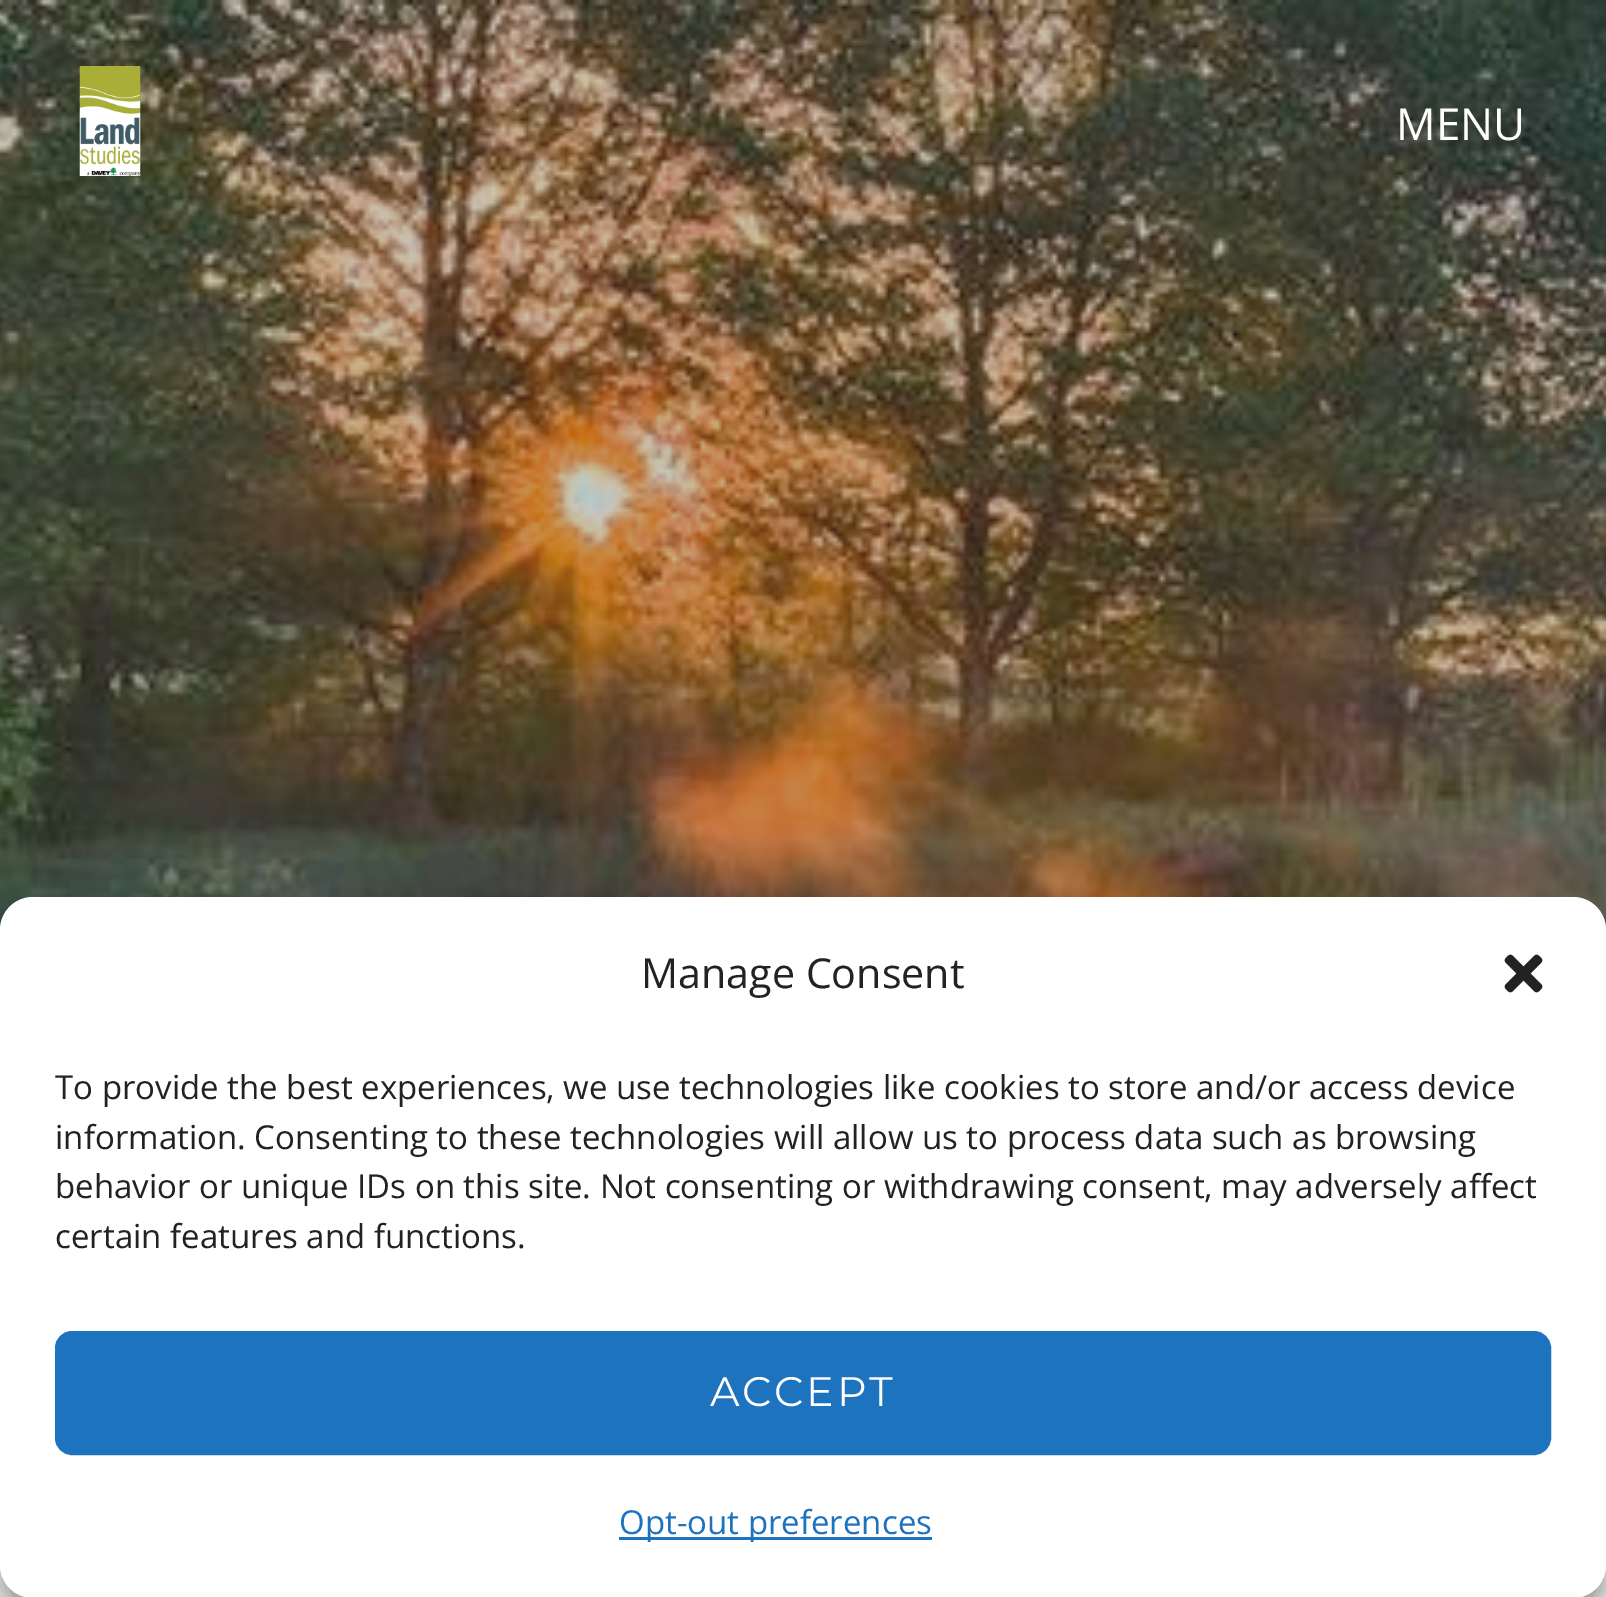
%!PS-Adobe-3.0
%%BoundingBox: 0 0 1606 1597
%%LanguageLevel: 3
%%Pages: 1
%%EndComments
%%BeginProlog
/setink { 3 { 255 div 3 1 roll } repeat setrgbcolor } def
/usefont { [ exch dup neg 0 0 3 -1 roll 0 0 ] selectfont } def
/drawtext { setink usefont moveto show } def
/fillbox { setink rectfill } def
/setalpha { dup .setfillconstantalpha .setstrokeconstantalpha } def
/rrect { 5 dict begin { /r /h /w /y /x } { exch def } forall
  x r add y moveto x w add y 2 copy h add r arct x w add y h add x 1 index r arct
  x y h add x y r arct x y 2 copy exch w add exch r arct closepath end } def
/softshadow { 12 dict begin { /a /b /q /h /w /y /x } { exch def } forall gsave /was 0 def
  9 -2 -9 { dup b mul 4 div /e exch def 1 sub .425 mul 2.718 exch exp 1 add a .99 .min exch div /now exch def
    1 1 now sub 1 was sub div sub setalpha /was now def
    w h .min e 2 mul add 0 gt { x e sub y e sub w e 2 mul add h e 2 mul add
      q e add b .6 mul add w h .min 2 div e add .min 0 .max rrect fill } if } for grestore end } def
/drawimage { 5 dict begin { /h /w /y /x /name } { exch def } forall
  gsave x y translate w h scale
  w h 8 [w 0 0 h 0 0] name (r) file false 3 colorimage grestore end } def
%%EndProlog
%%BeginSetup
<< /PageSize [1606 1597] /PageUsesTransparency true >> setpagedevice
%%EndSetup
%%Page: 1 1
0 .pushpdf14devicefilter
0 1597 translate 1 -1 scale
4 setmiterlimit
0 0 1606 1597 247 247 247 fillbox
(assets/img1.rgb) 0 0 1606 930 drawimage
(assets/img2.rgb) 79 66 62 110 drawimage
(MENU) 1396 140 /OpenSans-Regular 44 255 255 255 drawtext
0 0 0 setink
0 913 1606 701 33 8 0.23 softshadow
0 924 1606 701 33 27.5 0.19 softshadow
255 255 255 setink
0 897 1606 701 33 rrect fill
(Manage Consent) 641 988 /OpenSans-Regular 41.25 34 34 34 drawtext
(assets/img3.rgb) 1504 954 39 39 drawimage
(To provide the best experiences, we use technologies like cookies to store and/or access device) 55 1099 /OpenSans-Regular 33 34 34 34 drawtext
(information. Consenting to these technologies will allow us to process data such as browsing) 55 1149 /OpenSans-Regular 33 34 34 34 drawtext
(behavior or unique IDs on this site. Not consenting or withdrawing consent, may adversely affect) 55 1198 /OpenSans-Regular 33 34 34 34 drawtext
(certain features and functions.) 55 1248 /OpenSans-Regular 33 34 34 34 drawtext
30 115 190 setink
56.5 1332.5 1493 121 15.5 rrect gsave fill grestore
3 setlinewidth
stroke
/Montserrat-Regular 41.25 usefont
255 255 255 setink
710 1406 moveto 2.75 0 (ACCEPT) ashow
619 1537 313 3 30 115 190 fillbox
(Opt-out preferences) 619 1534 /OpenSans-Regular 33 30 115 190 drawtext
.poppdf14devicefilter showpage
%%EOF
